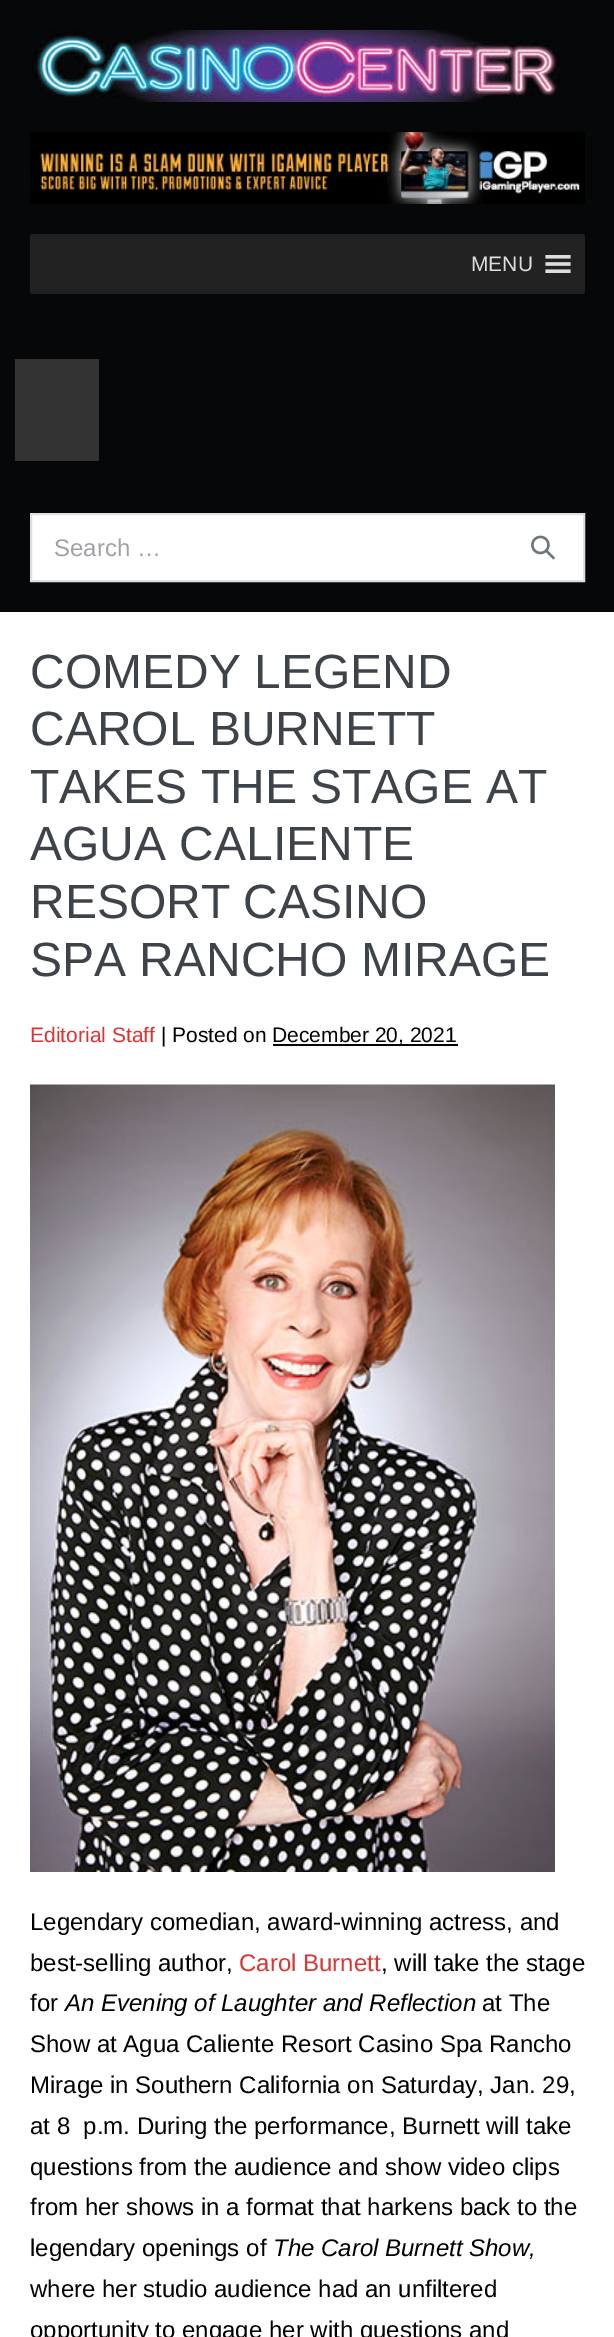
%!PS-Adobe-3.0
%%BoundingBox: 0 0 614 2337
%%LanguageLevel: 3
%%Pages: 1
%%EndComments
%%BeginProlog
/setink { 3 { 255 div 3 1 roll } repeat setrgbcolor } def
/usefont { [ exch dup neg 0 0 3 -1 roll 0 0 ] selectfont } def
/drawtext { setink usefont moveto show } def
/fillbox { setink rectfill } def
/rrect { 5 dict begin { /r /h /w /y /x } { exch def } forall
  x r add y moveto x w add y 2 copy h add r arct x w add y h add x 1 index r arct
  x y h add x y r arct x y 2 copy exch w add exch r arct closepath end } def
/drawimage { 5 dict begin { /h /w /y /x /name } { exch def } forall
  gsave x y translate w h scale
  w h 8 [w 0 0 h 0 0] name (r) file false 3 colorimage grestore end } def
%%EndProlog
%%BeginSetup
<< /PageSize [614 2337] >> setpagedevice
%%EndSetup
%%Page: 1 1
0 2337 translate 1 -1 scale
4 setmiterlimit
0 0 614 2337 255 255 255 fillbox
0 0 614 612 6 7 9 fillbox
(assets/img1.rgb) 30 30 531 72 drawimage
(assets/img2.rgb) 30 132 555 72 drawimage
34 34 34 setink
30 234 555 60 3 rrect fill
(MENU) 471 271 /LiberationSans-Regular 21 221 221 221 drawtext
(assets/img3.rgb) 545 255 26 18 drawimage
15 359 84 102 51 51 51 fillbox
255 255 255 setink
31 514 moveto 584 514 lineto 584 581 lineto 31 581 lineto closepath gsave fill grestore
222 222 229 setink
2 setlinewidth
stroke
(Search …) 54 556 /LiberationSans-Regular 24 159 161 164 drawtext
(assets/img4.rgb) 531 535 24 25 drawimage
(COMEDY LEGEND) 30 688 /LiberationSans-Regular 48 62 67 73 drawtext
(CAROL BURNETT) 30 745 /LiberationSans-Regular 48 62 67 73 drawtext
(TAKES THE STAGE AT) 30 803 /LiberationSans-Regular 48 62 67 73 drawtext
(AGUA CALIENTE) 30 860 /LiberationSans-Regular 48 62 67 73 drawtext
(RESORT CASINO) 30 918 /LiberationSans-Regular 48 62 67 73 drawtext
(SPA RANCHO MIRAGE) 30 976 /LiberationSans-Regular 48 62 67 73 drawtext
(Editorial Staff) 30 1042 /LiberationSans-Regular 21 221 51 51 drawtext
(| Posted on) 161 1042 /LiberationSans-Regular 21 0 0 0 drawtext
273 1044 185 2 0 0 0 fillbox
(December 20, 2021) 272 1042 /LiberationSans-Regular 21 0 0 0 drawtext
(assets/img5.rgb) 30 1084 525 788 drawimage
(Legendary comedian, award-winning actress, and) 30 1930 /LiberationSans-Regular 24 0 0 0 drawtext
(best-selling author,) 30 1971 /LiberationSans-Regular 24 0 0 0 drawtext
(Carol Burnett) 239 1971 /LiberationSans-Regular 24 221 51 51 drawtext
(, will take the stage) 381 1971 /LiberationSans-Regular 24 0 0 0 drawtext
(for) 30 2011 /LiberationSans-Regular 24 0 0 0 drawtext
(An Evening of Laughter and Reflection) 65 2011 /LiberationSans-Italic 24 0 0 0 drawtext
(at The) 482 2011 /LiberationSans-Regular 24 0 0 0 drawtext
(Show at Agua Caliente Resort Casino Spa Rancho) 30 2052 /LiberationSans-Regular 24 0 0 0 drawtext
(Mirage in Southern California on Saturday, Jan. 29,) 30 2093 /LiberationSans-Regular 24 0 0 0 drawtext
(at 8  p.m. During the performance, Burnett will take) 30 2134 /LiberationSans-Regular 24 0 0 0 drawtext
(questions from the audience and show video clips) 30 2175 /LiberationSans-Regular 24 0 0 0 drawtext
(from her shows in a format that harkens back to the) 30 2215 /LiberationSans-Regular 24 0 0 0 drawtext
(legendary openings of) 30 2256 /LiberationSans-Regular 24 0 0 0 drawtext
(The Carol Burnett Show,) 273 2256 /LiberationSans-Italic 24 0 0 0 drawtext
(where her studio audience had an unfiltered) 30 2297 /LiberationSans-Regular 24 0 0 0 drawtext
(opportunity to engage her with questions and) 30 2338 /LiberationSans-Regular 24 0 0 0 drawtext
showpage
%%EOF
